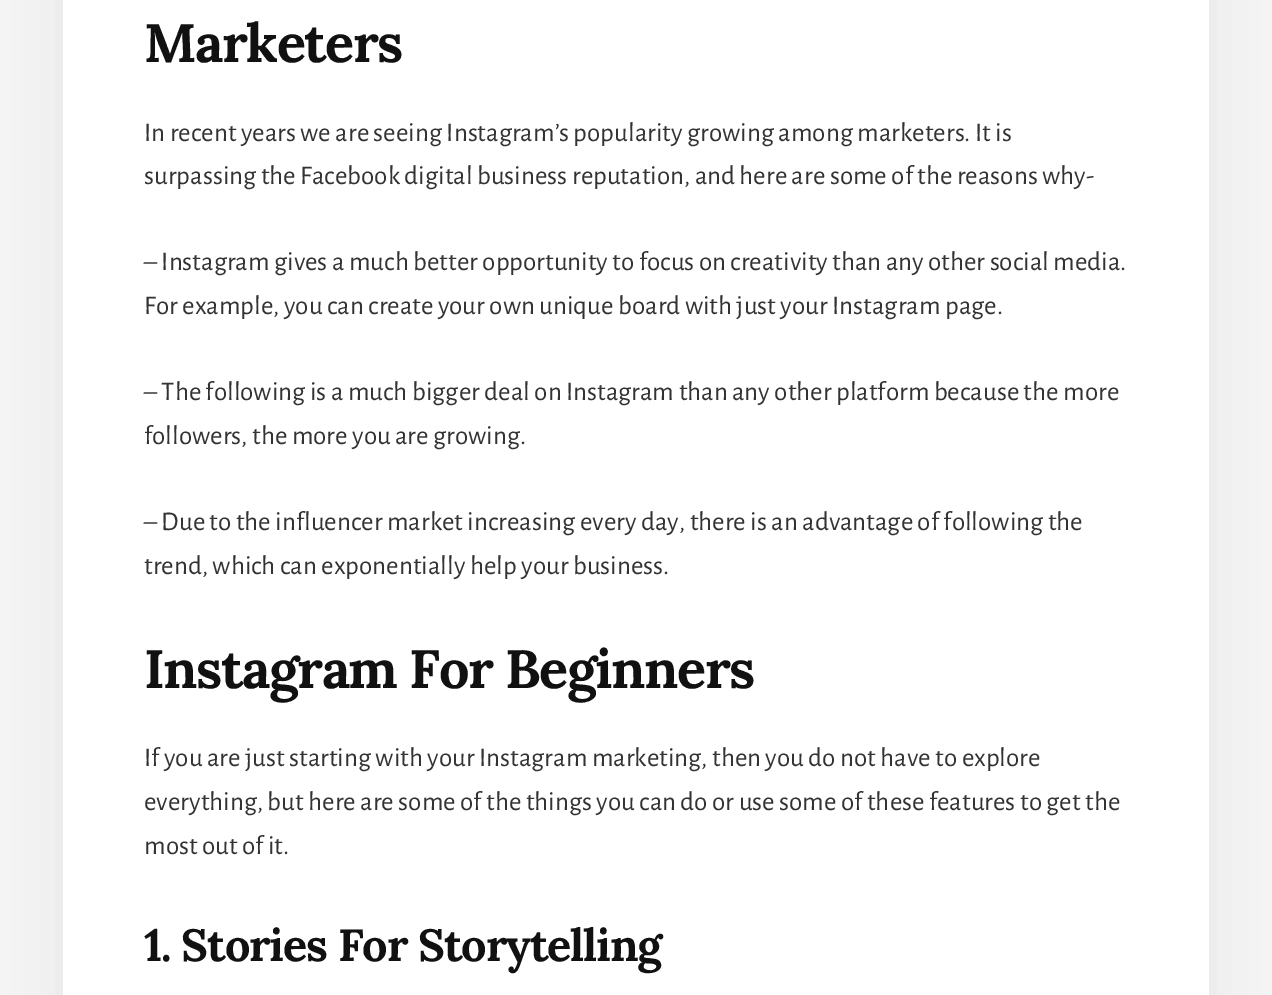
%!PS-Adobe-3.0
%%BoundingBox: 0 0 1272 995
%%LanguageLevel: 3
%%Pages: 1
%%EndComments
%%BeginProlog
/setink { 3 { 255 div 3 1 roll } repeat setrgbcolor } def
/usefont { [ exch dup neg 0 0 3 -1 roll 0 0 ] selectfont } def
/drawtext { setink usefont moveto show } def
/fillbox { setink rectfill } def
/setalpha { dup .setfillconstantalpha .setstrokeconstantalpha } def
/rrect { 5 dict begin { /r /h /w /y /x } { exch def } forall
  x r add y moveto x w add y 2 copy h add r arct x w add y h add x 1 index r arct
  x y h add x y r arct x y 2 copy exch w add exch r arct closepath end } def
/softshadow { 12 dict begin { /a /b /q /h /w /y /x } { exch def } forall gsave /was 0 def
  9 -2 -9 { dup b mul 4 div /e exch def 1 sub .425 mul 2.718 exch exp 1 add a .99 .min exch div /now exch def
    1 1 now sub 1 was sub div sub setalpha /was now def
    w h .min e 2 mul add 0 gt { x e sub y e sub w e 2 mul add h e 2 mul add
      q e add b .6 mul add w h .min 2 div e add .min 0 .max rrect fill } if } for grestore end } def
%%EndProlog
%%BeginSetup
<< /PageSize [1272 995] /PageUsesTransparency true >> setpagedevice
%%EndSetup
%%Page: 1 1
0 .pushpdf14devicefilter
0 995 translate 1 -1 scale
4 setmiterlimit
0 0 1272 995 244 244 244 fillbox
0 0 0 setink
63 -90 1146 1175 0 30 0.05 softshadow
63 0 1146 995 255 255 255 fillbox
/Lora-Bold 54 usefont
17 17 17 setink
144 62 moveto -1.5 0 (Marketers) ashow
(In recent years we are seeing Instagram’s popularity growing among marketers. It is) 144 141 /AlegreyaSans-Regular 27 51 51 51 drawtext
(surpassing the Facebook digital business reputation, and here are some of the reasons why-) 144 184 /AlegreyaSans-Regular 27 51 51 51 drawtext
(– Instagram gives a much better opportunity to focus on creativity than any other social media.) 144 270 /AlegreyaSans-Regular 27 51 51 51 drawtext
(For example, you can create your own unique board with just your Instagram page.) 144 314 /AlegreyaSans-Regular 27 51 51 51 drawtext
(– The following is a much bigger deal on Instagram than any other platform because the more) 144 400 /AlegreyaSans-Regular 27 51 51 51 drawtext
(followers, the more you are growing.) 144 444 /AlegreyaSans-Regular 27 51 51 51 drawtext
(– Due to the influencer market increasing every day, there is an advantage of following the) 144 530 /AlegreyaSans-Regular 27 51 51 51 drawtext
(trend, which can exponentially help your business.) 144 574 /AlegreyaSans-Regular 27 51 51 51 drawtext
/Lora-Bold 54 usefont
17 17 17 setink
144 688 moveto -1.5 0 (Instagram For Beginners) ashow
(If you are just starting with your Instagram marketing, then you do not have to explore) 144 766 /AlegreyaSans-Regular 27 51 51 51 drawtext
(everything, but here are some of the things you can do or use some of these features to get the) 144 810 /AlegreyaSans-Regular 27 51 51 51 drawtext
(most out of it.) 144 854 /AlegreyaSans-Regular 27 51 51 51 drawtext
/Lora-Bold 45 usefont
17 17 17 setink
144 961 moveto -1.1 0 (1. Stories For Storytelling) ashow
.poppdf14devicefilter showpage
%%EOF
